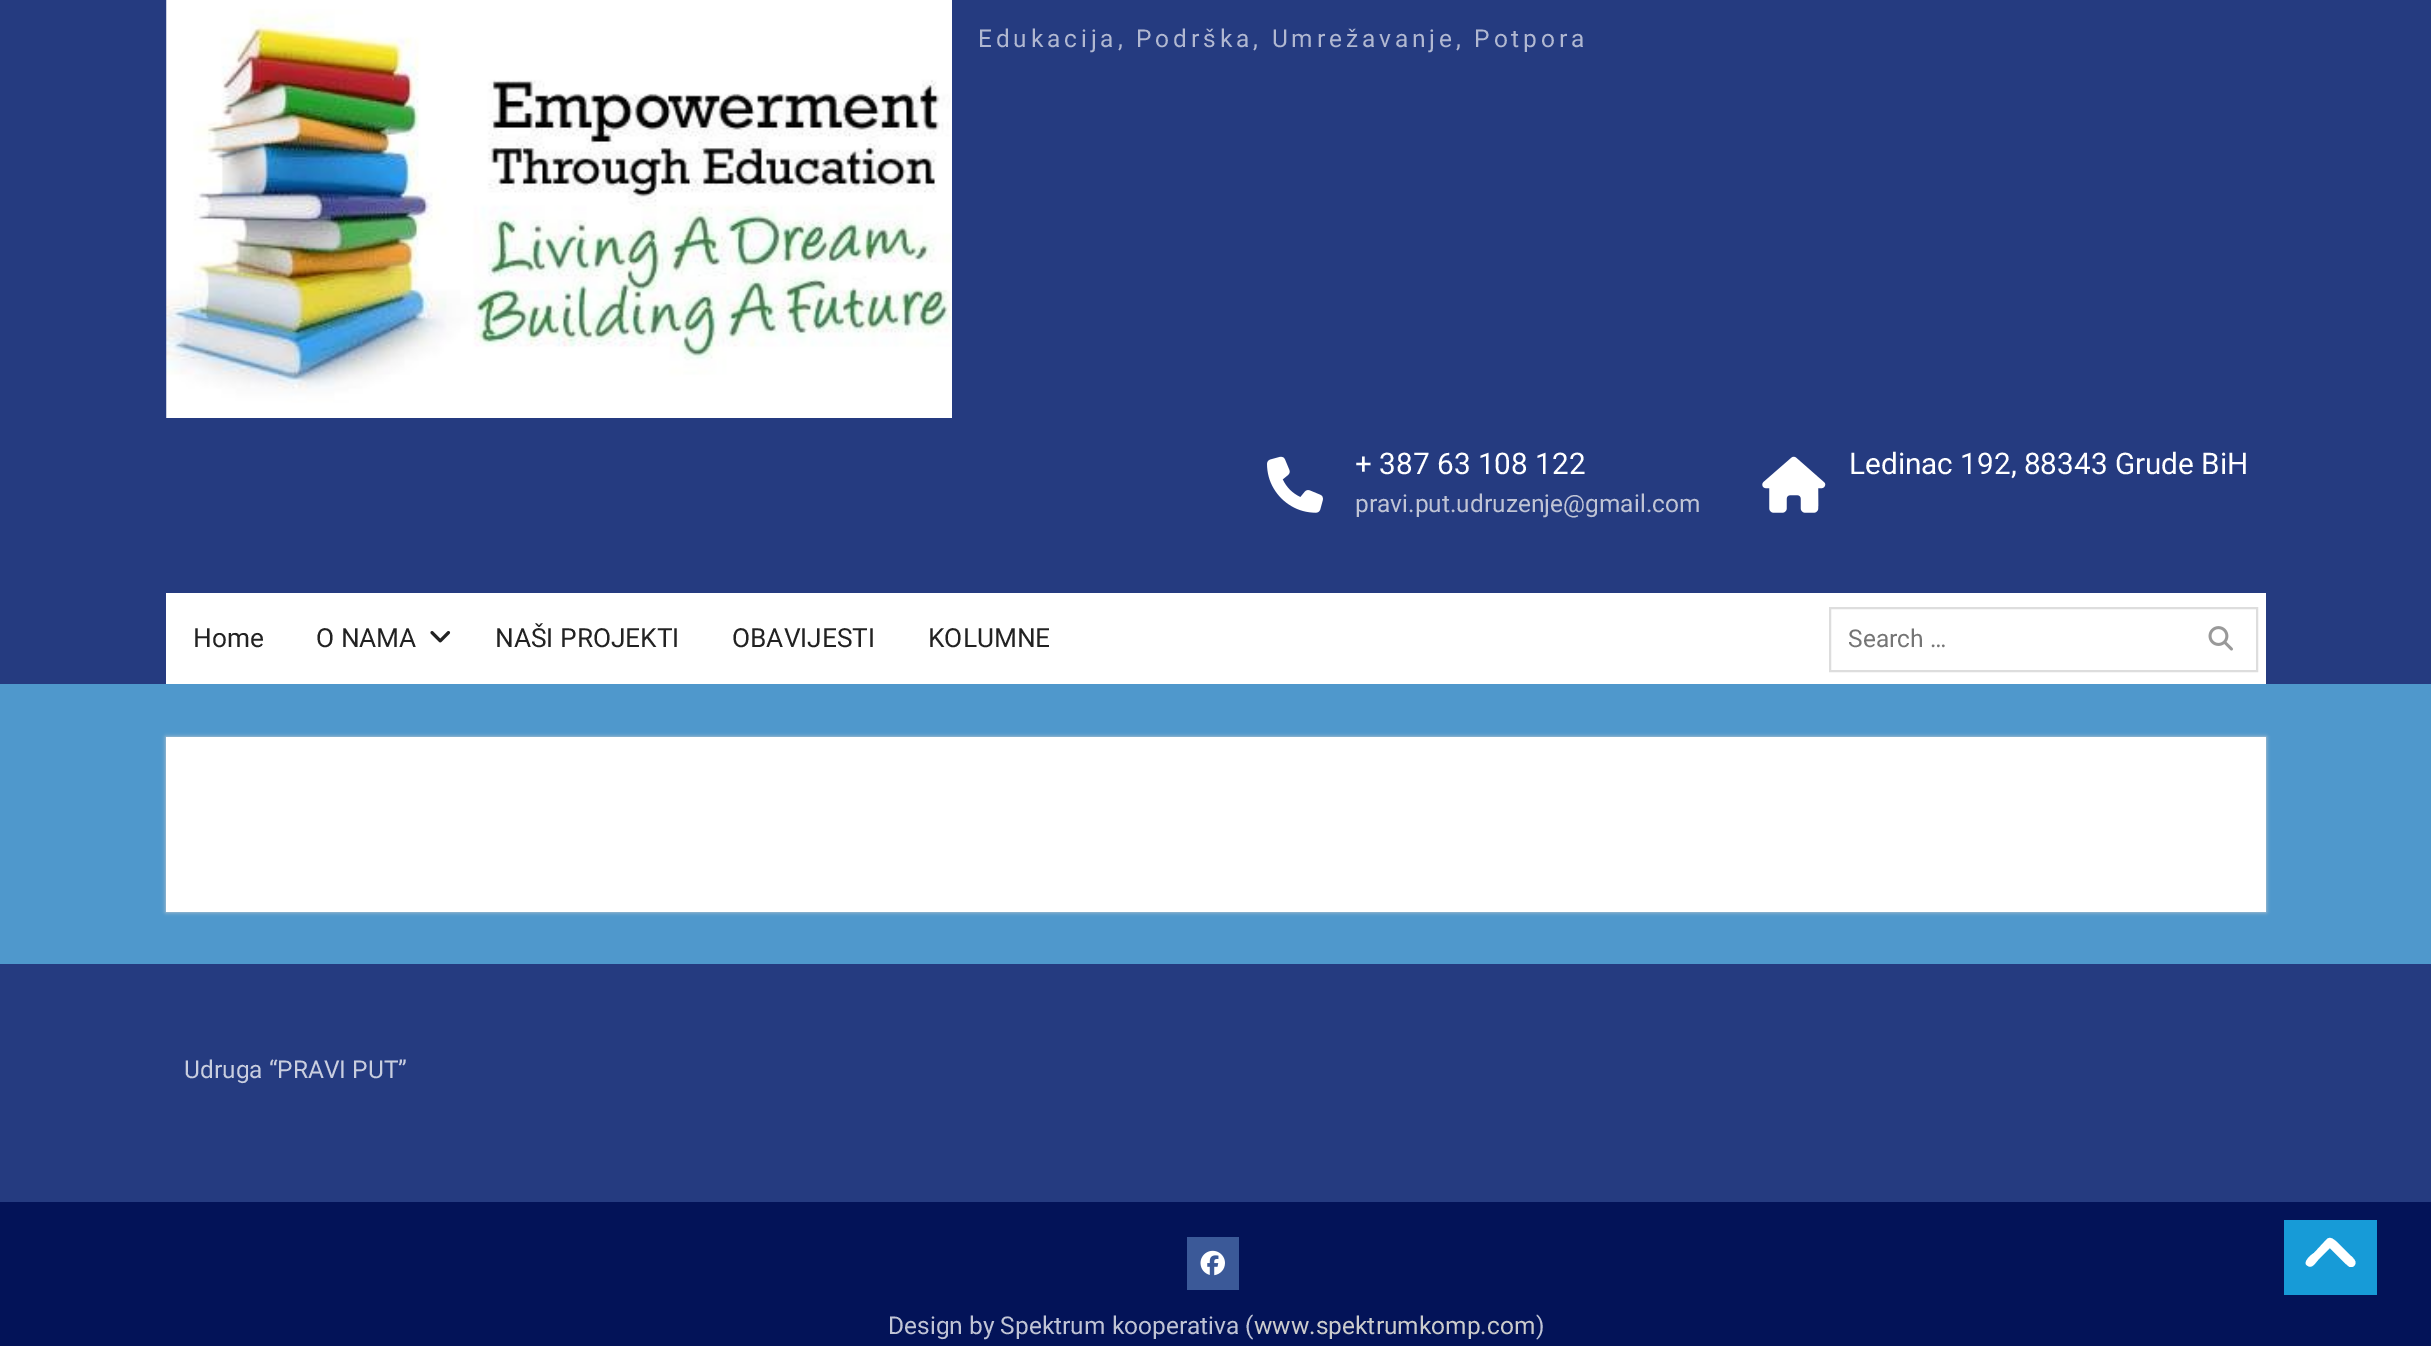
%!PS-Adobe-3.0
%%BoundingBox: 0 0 2431 1346
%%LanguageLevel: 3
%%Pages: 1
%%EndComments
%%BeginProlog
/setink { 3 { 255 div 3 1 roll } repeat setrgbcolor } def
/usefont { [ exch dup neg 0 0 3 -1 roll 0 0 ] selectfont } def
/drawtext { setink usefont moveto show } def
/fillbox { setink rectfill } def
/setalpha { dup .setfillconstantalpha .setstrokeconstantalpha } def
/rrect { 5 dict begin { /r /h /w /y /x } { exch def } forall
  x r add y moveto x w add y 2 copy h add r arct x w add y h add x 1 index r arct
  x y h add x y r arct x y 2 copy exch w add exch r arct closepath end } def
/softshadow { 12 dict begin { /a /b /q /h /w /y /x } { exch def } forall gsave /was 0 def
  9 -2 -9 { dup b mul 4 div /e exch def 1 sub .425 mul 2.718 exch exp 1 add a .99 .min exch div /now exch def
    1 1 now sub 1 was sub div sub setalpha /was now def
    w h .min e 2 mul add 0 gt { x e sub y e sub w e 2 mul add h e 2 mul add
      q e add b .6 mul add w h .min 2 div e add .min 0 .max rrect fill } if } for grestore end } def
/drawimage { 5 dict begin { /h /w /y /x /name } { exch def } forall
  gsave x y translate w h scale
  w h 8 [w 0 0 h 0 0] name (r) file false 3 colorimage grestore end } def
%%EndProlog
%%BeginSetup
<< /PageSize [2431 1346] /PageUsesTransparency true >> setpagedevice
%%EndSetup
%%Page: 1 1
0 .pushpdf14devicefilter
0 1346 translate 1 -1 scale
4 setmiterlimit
0 0 2431 1346 79 152 204 fillbox
0 0 2431 684 37 59 128 fillbox
(assets/img1.rgb) 166 0 786 418 drawimage
/Roboto-Regular 24.5 usefont
177 184 209 setink
978 47 moveto 3.85 0 (Edukacija, Podrška, Umrežavanje, Potpora) ashow
(assets/img2.rgb) 1267 456 56 57 drawimage
(+ 387 63 108 122) 1355 474 /Roboto-Regular 29.75 255 255 255 drawtext
(pravi.put.udruzenje@gmail.com) 1355 512 /Roboto-Regular 24.5 192 196 213 drawtext
(assets/img3.rgb) 1762 456 64 57 drawimage
(Ledinac 192, 88343 Grude BiH) 1849 474 /Roboto-Regular 29.75 255 255 255 drawtext
166 593 2100 91 255 255 255 fillbox
(Home) 193 647 /Roboto-Regular 26.25 34 34 34 drawtext
(O NAMA) 316 647 /Roboto-Regular 26.25 34 34 34 drawtext
(assets/img4.rgb) 430 631 21 12 drawimage
(NAŠI PROJEKTI) 495 647 /Roboto-Regular 26.25 34 34 34 drawtext
(OBAVIJESTI) 732 647 /Roboto-Regular 26.25 34 34 34 drawtext
(KOLUMNE) 928 647 /Roboto-Regular 26.25 34 34 34 drawtext
221 221 221 setink
2 setlinewidth
1830 608 427 63 rectstroke
(Search …) 1848 647 /Roboto-Regular 24.5 117 117 117 drawtext
(assets/img5.rgb) 2208 626 25 25 drawimage
207 207 207 setink
166 737 2100 175 0 2 1 softshadow
166 737 2100 175 255 255 255 fillbox
0 964 2431 238 37 59 128 fillbox
(Udruga “PRAVI PUT”) 184 1078 /Roboto-Regular 24.5 201 206 223 drawtext
0 1202 2431 144 3 19 88 fillbox
1187 1237 52 53 59 89 152 fillbox
(assets/img6.rgb) 1200 1250 25 26 drawimage
(Design by Spektrum kooperativa \() 888 1334 /Roboto-Regular 24.5 192 196 213 drawtext
(www.spektrumkomp.com) 1254 1334 /Roboto-Regular 24.5 204 204 204 drawtext
(\)) 1536 1334 /Roboto-Regular 24.5 192 196 213 drawtext
2284 1220 93 75 23 155 215 fillbox
255 255 255 setink
2327 1239 moveto 2331 1236 2334 1240 2337 1242 curveto 2351 1256 lineto 2353 1258 2358 1262 2354 1266 curveto 2353 1267 2352 1267 2350 1267 curveto 2347 1266 2333 1251 2330 1248 curveto 2318 1260 lineto 2316 1262 2312 1269 2308 1266 curveto 2301 1263 2312 1254 2314 1253 curveto closepath fill
.poppdf14devicefilter showpage
%%EOF
